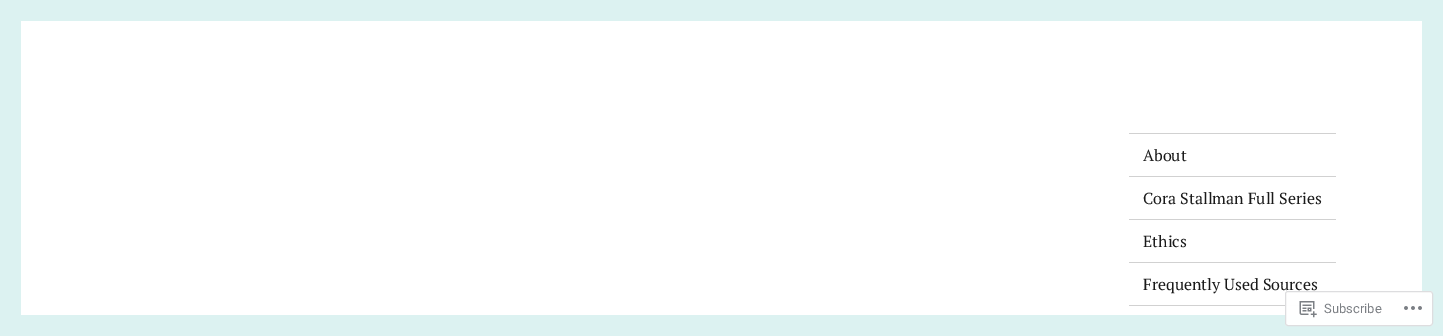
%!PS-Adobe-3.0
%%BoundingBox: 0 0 1443 336
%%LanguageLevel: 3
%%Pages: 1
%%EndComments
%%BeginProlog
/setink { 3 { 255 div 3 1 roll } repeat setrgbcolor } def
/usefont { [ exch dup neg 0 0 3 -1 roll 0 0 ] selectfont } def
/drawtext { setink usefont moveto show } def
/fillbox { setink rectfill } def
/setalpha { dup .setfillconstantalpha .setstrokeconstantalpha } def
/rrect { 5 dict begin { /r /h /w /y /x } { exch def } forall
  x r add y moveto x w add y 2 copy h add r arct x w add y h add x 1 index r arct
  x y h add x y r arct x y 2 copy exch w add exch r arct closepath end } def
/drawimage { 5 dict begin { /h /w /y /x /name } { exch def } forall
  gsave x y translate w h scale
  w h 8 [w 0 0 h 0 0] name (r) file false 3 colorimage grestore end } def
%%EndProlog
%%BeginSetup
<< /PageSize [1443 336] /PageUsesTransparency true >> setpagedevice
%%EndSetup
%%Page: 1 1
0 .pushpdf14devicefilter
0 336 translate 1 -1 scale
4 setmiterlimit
0 0 1443 336 220 242 241 fillbox
21 21 1401 294 255 255 255 fillbox
1129 133 207 1 209 209 209 fillbox
(About) 1143 161 /PTSerif-Regular 16 26 26 26 drawtext
1129 176 207 1 209 209 209 fillbox
(Cora Stallman Full Series) 1143 204 /PTSerif-Regular 16 26 26 26 drawtext
1129 219 207 1 209 209 209 fillbox
(Ethics) 1143 247 /PTSerif-Regular 16 26 26 26 drawtext
1129 262 207 1 209 209 209 fillbox
(Frequently Used Sources) 1143 290 /PTSerif-Regular 16 26 26 26 drawtext
1129 305 207 1 209 209 209 fillbox
0.98 setalpha
255 255 255 setink
1285 291 148 35 3 rrect fill
220 220 222 setink
1285.5 291.5 147 34 2.5 rrect stroke
1 setalpha
(assets/img1.rgb) 1299 301 18 17 drawimage
(Subscribe) 1324 313 /Roboto-Regular 13 123 127 132 drawtext
(assets/img2.rgb) 1404 306 18 4 drawimage
.poppdf14devicefilter showpage
%%EOF
